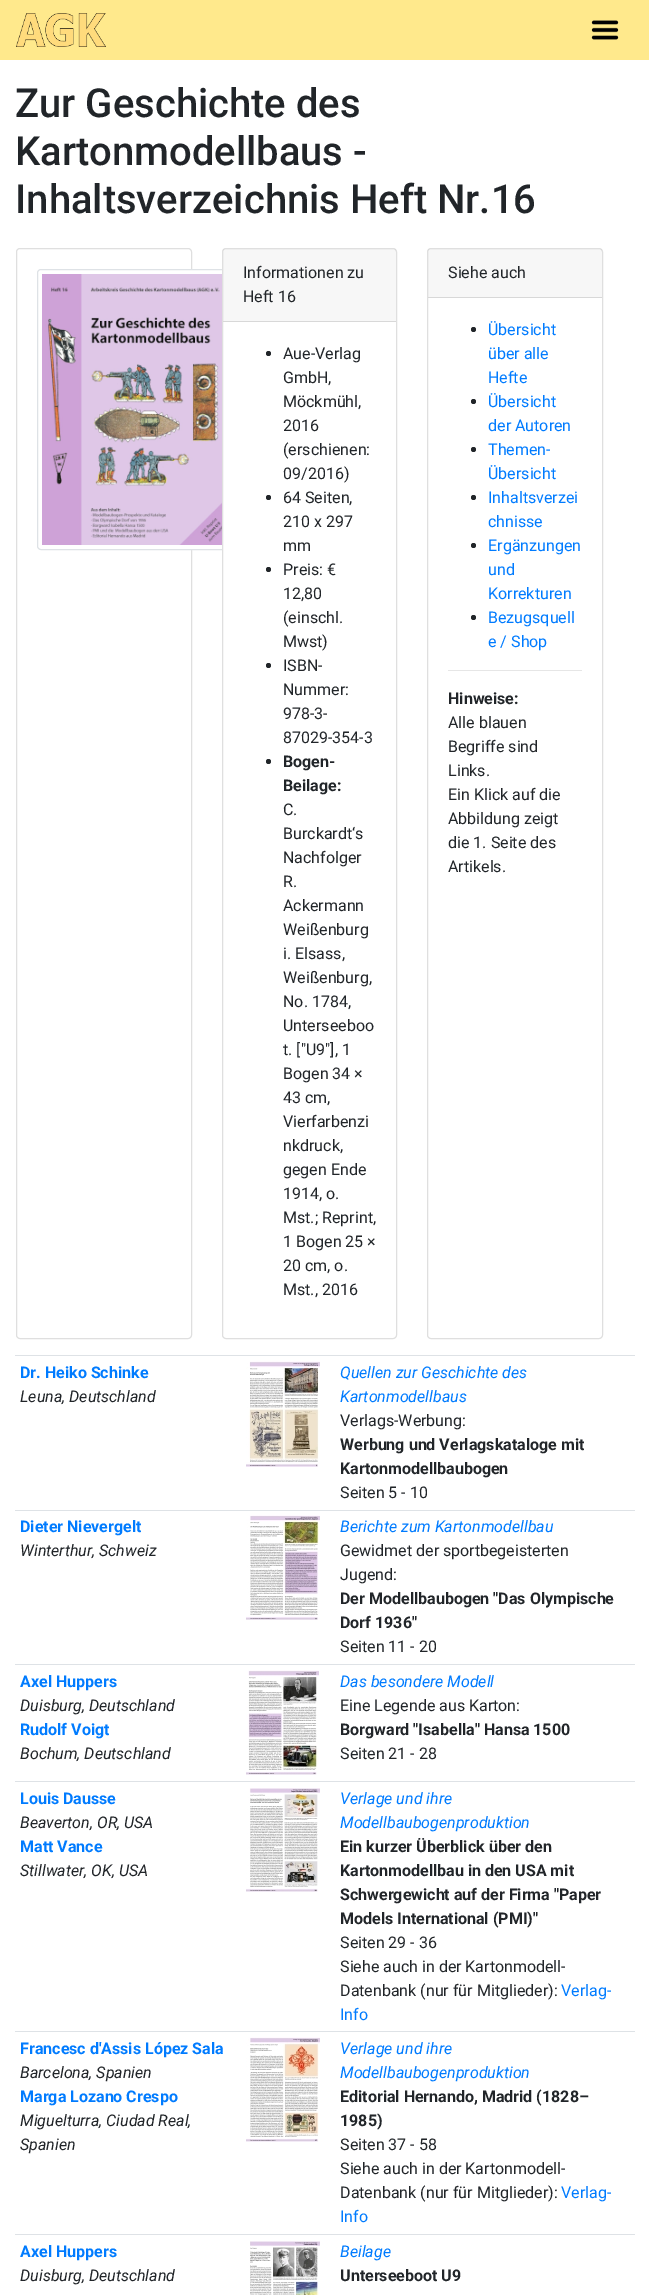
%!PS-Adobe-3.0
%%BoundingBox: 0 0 649 2295
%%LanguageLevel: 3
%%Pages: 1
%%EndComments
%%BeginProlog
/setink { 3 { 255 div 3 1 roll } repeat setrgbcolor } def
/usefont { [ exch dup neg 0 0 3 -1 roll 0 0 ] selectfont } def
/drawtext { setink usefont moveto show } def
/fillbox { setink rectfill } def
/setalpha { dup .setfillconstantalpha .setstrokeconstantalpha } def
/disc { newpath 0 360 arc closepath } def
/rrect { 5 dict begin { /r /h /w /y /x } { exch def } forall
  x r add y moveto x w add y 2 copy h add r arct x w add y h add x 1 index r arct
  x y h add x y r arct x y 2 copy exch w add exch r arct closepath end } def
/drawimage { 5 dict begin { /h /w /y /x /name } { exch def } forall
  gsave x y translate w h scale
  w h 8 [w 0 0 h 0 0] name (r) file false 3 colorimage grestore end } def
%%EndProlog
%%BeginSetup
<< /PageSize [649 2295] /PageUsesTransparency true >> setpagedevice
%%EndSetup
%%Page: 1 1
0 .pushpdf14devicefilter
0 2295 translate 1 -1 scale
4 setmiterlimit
0 0 649 2295 255 255 255 fillbox
0 0 649 60 255 233 140 fillbox
(assets/img1.rgb) 16 13 90 34 drawimage
(assets/img2.rgb) 591 20 28 20 drawimage
(Zur Geschichte des) 15 117 /Roboto-Medium 40 33 37 41 drawtext
(Kartonmodellbaus -) 15 165 /Roboto-Medium 40 33 37 41 drawtext
(Inhaltsverzeichnis Heft Nr.16) 15 213 /Roboto-Medium 40 33 37 41 drawtext
223 223 223 setink
16.5 248.5 175 1090 3.5 rrect stroke
255 255 255 setink
37.5 269.5 199 280 3.5 rrect gsave fill grestore
222 226 230 setink
stroke
(assets/img3.rgb) 42 274 180 271 drawimage
255 255 255 setink
222.5 248.5 174 1090 3.5 rrect gsave fill grestore
223 223 223 setink
stroke
0.03 setalpha
223 249 173 72 0 0 0 fillbox
1 setalpha
223 321 173 1 216 216 216 fillbox
(Informationen zu) 243 278 /Roboto-Regular 16 33 37 41 drawtext
(Heft 16) 243 302 /Roboto-Regular 16 33 37 41 drawtext
268.5 353.5 2.5 disc fill
(Aue-Verlag) 283 359 /Roboto-Regular 16 33 37 41 drawtext
(GmbH,) 283 383 /Roboto-Regular 16 33 37 41 drawtext
(Möckmühl,) 283 407 /Roboto-Regular 16 33 37 41 drawtext
(2016) 283 431 /Roboto-Regular 16 33 37 41 drawtext
(\(erschienen:) 283 455 /Roboto-Regular 16 33 37 41 drawtext
(09/2016\)) 283 479 /Roboto-Regular 16 33 37 41 drawtext
268.5 497.5 2.5 disc fill
(64 Seiten,) 283 503 /Roboto-Regular 16 33 37 41 drawtext
(210 x 297) 283 527 /Roboto-Regular 16 33 37 41 drawtext
(mm) 283 551 /Roboto-Regular 16 33 37 41 drawtext
268.5 569.5 2.5 disc fill
(Preis: €) 283 575 /Roboto-Regular 16 33 37 41 drawtext
(12,80) 283 599 /Roboto-Regular 16 33 37 41 drawtext
(\(einschl.) 283 623 /Roboto-Regular 16 33 37 41 drawtext
(Mwst\)) 283 647 /Roboto-Regular 16 33 37 41 drawtext
268.5 665.5 2.5 disc fill
(ISBN-) 283 671 /Roboto-Regular 16 33 37 41 drawtext
(Nummer:) 283 695 /Roboto-Regular 16 33 37 41 drawtext
(978-3-) 283 719 /Roboto-Regular 16 33 37 41 drawtext
(87029-354-3) 283 743 /Roboto-Regular 16 33 37 41 drawtext
268.5 761.5 2.5 disc fill
(Bogen-) 283 767 /Roboto-Bold 16 33 37 41 drawtext
(Beilage:) 283 791 /Roboto-Bold 16 33 37 41 drawtext
(C.) 283 815 /Roboto-Regular 16 33 37 41 drawtext
(Burckardt‘s) 283 839 /Roboto-Regular 16 33 37 41 drawtext
(Nachfolger) 283 863 /Roboto-Regular 16 33 37 41 drawtext
(R.) 283 887 /Roboto-Regular 16 33 37 41 drawtext
(Ackermann) 283 911 /Roboto-Regular 16 33 37 41 drawtext
(Weißenburg) 283 935 /Roboto-Regular 16 33 37 41 drawtext
(i. Elsass,) 283 959 /Roboto-Regular 16 33 37 41 drawtext
(Weißenburg,) 283 983 /Roboto-Regular 16 33 37 41 drawtext
(No. 1784,) 283 1007 /Roboto-Regular 16 33 37 41 drawtext
(Unterseeboo) 283 1031 /Roboto-Regular 16 33 37 41 drawtext
(t. ["U9"], 1) 283 1055 /Roboto-Regular 16 33 37 41 drawtext
(Bogen 34 ×) 283 1079 /Roboto-Regular 16 33 37 41 drawtext
(43 cm,) 283 1103 /Roboto-Regular 16 33 37 41 drawtext
(Vierfarbenzi) 283 1127 /Roboto-Regular 16 33 37 41 drawtext
(nkdruck,) 283 1151 /Roboto-Regular 16 33 37 41 drawtext
(gegen Ende) 283 1175 /Roboto-Regular 16 33 37 41 drawtext
(1914, o.) 283 1199 /Roboto-Regular 16 33 37 41 drawtext
(Mst.; Reprint,) 283 1223 /Roboto-Regular 16 33 37 41 drawtext
(1 Bogen 25 ×) 283 1247 /Roboto-Regular 16 33 37 41 drawtext
(20 cm, o.) 283 1271 /Roboto-Regular 16 33 37 41 drawtext
(Mst., 2016) 283 1295 /Roboto-Regular 16 33 37 41 drawtext
223 223 223 setink
427.5 248.5 175 1090 3.5 rrect stroke
0.03 setalpha
428 249 174 48 0 0 0 fillbox
1 setalpha
428 297 174 1 216 216 216 fillbox
(Siehe auch) 448 278 /Roboto-Regular 16 33 37 41 drawtext
473.5 329.5 2.5 disc fill
(Übersicht) 488 335 /Roboto-Regular 16 0 123 255 drawtext
(über alle) 488 359 /Roboto-Regular 16 0 123 255 drawtext
(Hefte) 488 383 /Roboto-Regular 16 0 123 255 drawtext
33 37 41 setink
473.5 401.5 2.5 disc fill
(Übersicht) 488 407 /Roboto-Regular 16 0 123 255 drawtext
(der Autoren) 488 431 /Roboto-Regular 16 0 123 255 drawtext
33 37 41 setink
473.5 449.5 2.5 disc fill
(Themen-) 488 455 /Roboto-Regular 16 0 123 255 drawtext
(Übersicht) 488 479 /Roboto-Regular 16 0 123 255 drawtext
33 37 41 setink
473.5 497.5 2.5 disc fill
(Inhaltsverzei) 488 503 /Roboto-Regular 16 0 123 255 drawtext
(chnisse) 488 527 /Roboto-Regular 16 0 123 255 drawtext
33 37 41 setink
473.5 545.5 2.5 disc fill
(Ergänzungen) 488 551 /Roboto-Regular 16 0 123 255 drawtext
(und) 488 575 /Roboto-Regular 16 0 123 255 drawtext
(Korrekturen) 488 599 /Roboto-Regular 16 0 123 255 drawtext
33 37 41 setink
473.5 617.5 2.5 disc fill
(Bezugsquell) 488 623 /Roboto-Regular 16 0 123 255 drawtext
(e / Shop) 488 647 /Roboto-Regular 16 0 123 255 drawtext
448 670 134 1 230 230 230 fillbox
(Hinweise:) 448 704 /Roboto-Bold 16 33 37 41 drawtext
(Alle blauen) 448 728 /Roboto-Regular 16 33 37 41 drawtext
(Begriffe sind) 448 752 /Roboto-Regular 16 33 37 41 drawtext
(Links.) 448 776 /Roboto-Regular 16 33 37 41 drawtext
(Ein Klick auf die) 448 800 /Roboto-Regular 16 33 37 41 drawtext
(Abbildung zeigt) 448 824 /Roboto-Regular 16 33 37 41 drawtext
(die 1. Seite des) 448 848 /Roboto-Regular 16 33 37 41 drawtext
(Artikels.) 448 872 /Roboto-Regular 16 33 37 41 drawtext
(Dr. Heiko Schinke) 20 1378 /Roboto-Bold 16 0 123 255 drawtext
(Leuna, Deutschland) 20 1402 /Roboto-Italic 16 33 37 41 drawtext
(assets/img4.rgb) 246 1361 74 106 drawimage
15 1355 620 1 222 226 230 fillbox
(Quellen zur Geschichte des) 340 1378 /Roboto-Italic 16 0 123 255 drawtext
(Kartonmodellbaus) 340 1402 /Roboto-Italic 16 0 123 255 drawtext
(Verlags-Werbung:) 340 1426 /Roboto-Regular 16 33 37 41 drawtext
(Werbung und Verlagskataloge mit) 340 1450 /Roboto-Bold 16 33 37 41 drawtext
(Kartonmodellbaubogen) 340 1474 /Roboto-Bold 16 33 37 41 drawtext
(Seiten 5 - 10) 340 1498 /Roboto-Regular 16 33 37 41 drawtext
(Dieter Nievergelt) 20 1532 /Roboto-Bold 16 0 123 255 drawtext
(Winterthur, Schweiz) 20 1556 /Roboto-Italic 16 33 37 41 drawtext
(assets/img5.rgb) 246 1515 74 105 drawimage
15 1510 620 1 222 226 230 fillbox
(Berichte zum Kartonmodellbau) 340 1532 /Roboto-Italic 16 0 123 255 drawtext
(Gewidmet der sportbegeisterten) 340 1556 /Roboto-Regular 16 33 37 41 drawtext
(Jugend:) 340 1580 /Roboto-Regular 16 33 37 41 drawtext
(Der Modellbaubogen "Das Olympische) 340 1604 /Roboto-Bold 16 33 37 41 drawtext
(Dorf 1936") 340 1628 /Roboto-Bold 16 33 37 41 drawtext
(Seiten 11 - 20) 340 1652 /Roboto-Regular 16 33 37 41 drawtext
(Axel Huppers) 20 1687 /Roboto-Bold 16 0 123 255 drawtext
(Duisburg, Deutschland) 20 1711 /Roboto-Italic 16 33 37 41 drawtext
(Rudolf Voigt) 20 1735 /Roboto-Bold 16 0 123 255 drawtext
(Bochum, Deutschland) 20 1759 /Roboto-Italic 16 33 37 41 drawtext
(assets/img6.rgb) 246 1670 73 105 drawimage
15 1664 620 1 222 226 230 fillbox
(Das besondere Modell) 340 1687 /Roboto-Italic 16 0 123 255 drawtext
(Eine Legende aus Karton:) 340 1711 /Roboto-Regular 16 33 37 41 drawtext
(Borgward "Isabella" Hansa 1500) 340 1735 /Roboto-Bold 16 33 37 41 drawtext
(Seiten 21 - 28) 340 1759 /Roboto-Regular 16 33 37 41 drawtext
(Louis Dausse) 20 1804 /Roboto-Bold 16 0 123 255 drawtext
(Beaverton, OR, USA) 20 1828 /Roboto-Italic 16 33 37 41 drawtext
(Matt Vance) 20 1852 /Roboto-Bold 16 0 123 255 drawtext
(Stillwater, OK, USA) 20 1876 /Roboto-Italic 16 33 37 41 drawtext
(assets/img7.rgb) 246 1788 74 104 drawimage
15 1781 620 1 222 226 230 fillbox
(Verlage und ihre) 340 1804 /Roboto-Italic 16 0 123 255 drawtext
(Modellbaubogenproduktion) 340 1828 /Roboto-Italic 16 0 123 255 drawtext
(Ein kurzer Überblick über den) 340 1852 /Roboto-Bold 16 33 37 41 drawtext
(Kartonmodellbau in den USA mit) 340 1876 /Roboto-Bold 16 33 37 41 drawtext
(Schwergewicht auf der Firma "Paper) 340 1900 /Roboto-Bold 16 33 37 41 drawtext
(Models International \(PMI\)") 340 1924 /Roboto-Bold 16 33 37 41 drawtext
(Seiten 29 - 36) 340 1948 /Roboto-Regular 16 33 37 41 drawtext
(Siehe auch in der Kartonmodell-) 340 1972 /Roboto-Regular 16 33 37 41 drawtext
(Datenbank \(nur für Mitglieder\):) 340 1996 /Roboto-Regular 16 33 37 41 drawtext
(Verlag-) 561 1996 /Roboto-Regular 16 0 123 255 drawtext
(Info) 340 2020 /Roboto-Regular 16 0 123 255 drawtext
(Francesc d'Assis López Sala) 20 2054 /Roboto-Bold 16 0 123 255 drawtext
(Barcelona, Spanien) 20 2078 /Roboto-Italic 16 33 37 41 drawtext
(Marga Lozano Crespo) 20 2102 /Roboto-Bold 16 0 123 255 drawtext
(Miguelturra, Ciudad Real,) 20 2126 /Roboto-Italic 16 33 37 41 drawtext
(Spanien) 20 2150 /Roboto-Italic 16 33 37 41 drawtext
(assets/img8.rgb) 246 2037 74 105 drawimage
15 2031 620 1 222 226 230 fillbox
(Verlage und ihre) 340 2054 /Roboto-Italic 16 0 123 255 drawtext
(Modellbaubogenproduktion) 340 2078 /Roboto-Italic 16 0 123 255 drawtext
(Editorial Hernando, Madrid \(1828–) 340 2102 /Roboto-Bold 16 33 37 41 drawtext
(1985\)) 340 2126 /Roboto-Bold 16 33 37 41 drawtext
(Seiten 37 - 58) 340 2150 /Roboto-Regular 16 33 37 41 drawtext
(Siehe auch in der Kartonmodell-) 340 2174 /Roboto-Regular 16 33 37 41 drawtext
(Datenbank \(nur für Mitglieder\):) 340 2198 /Roboto-Regular 16 33 37 41 drawtext
(Verlag-) 561 2198 /Roboto-Regular 16 0 123 255 drawtext
(Info) 340 2222 /Roboto-Regular 16 0 123 255 drawtext
(Axel Huppers) 20 2257 /Roboto-Bold 16 0 123 255 drawtext
(Duisburg, Deutschland) 20 2281 /Roboto-Italic 16 33 37 41 drawtext
(assets/img9.rgb) 250 2241 70 54 drawimage
15 2234 620 1 222 226 230 fillbox
(Beilage) 340 2257 /Roboto-Italic 16 0 123 255 drawtext
(Unterseeboot U9) 340 2281 /Roboto-Bold 16 33 37 41 drawtext
.poppdf14devicefilter showpage
%%EOF
